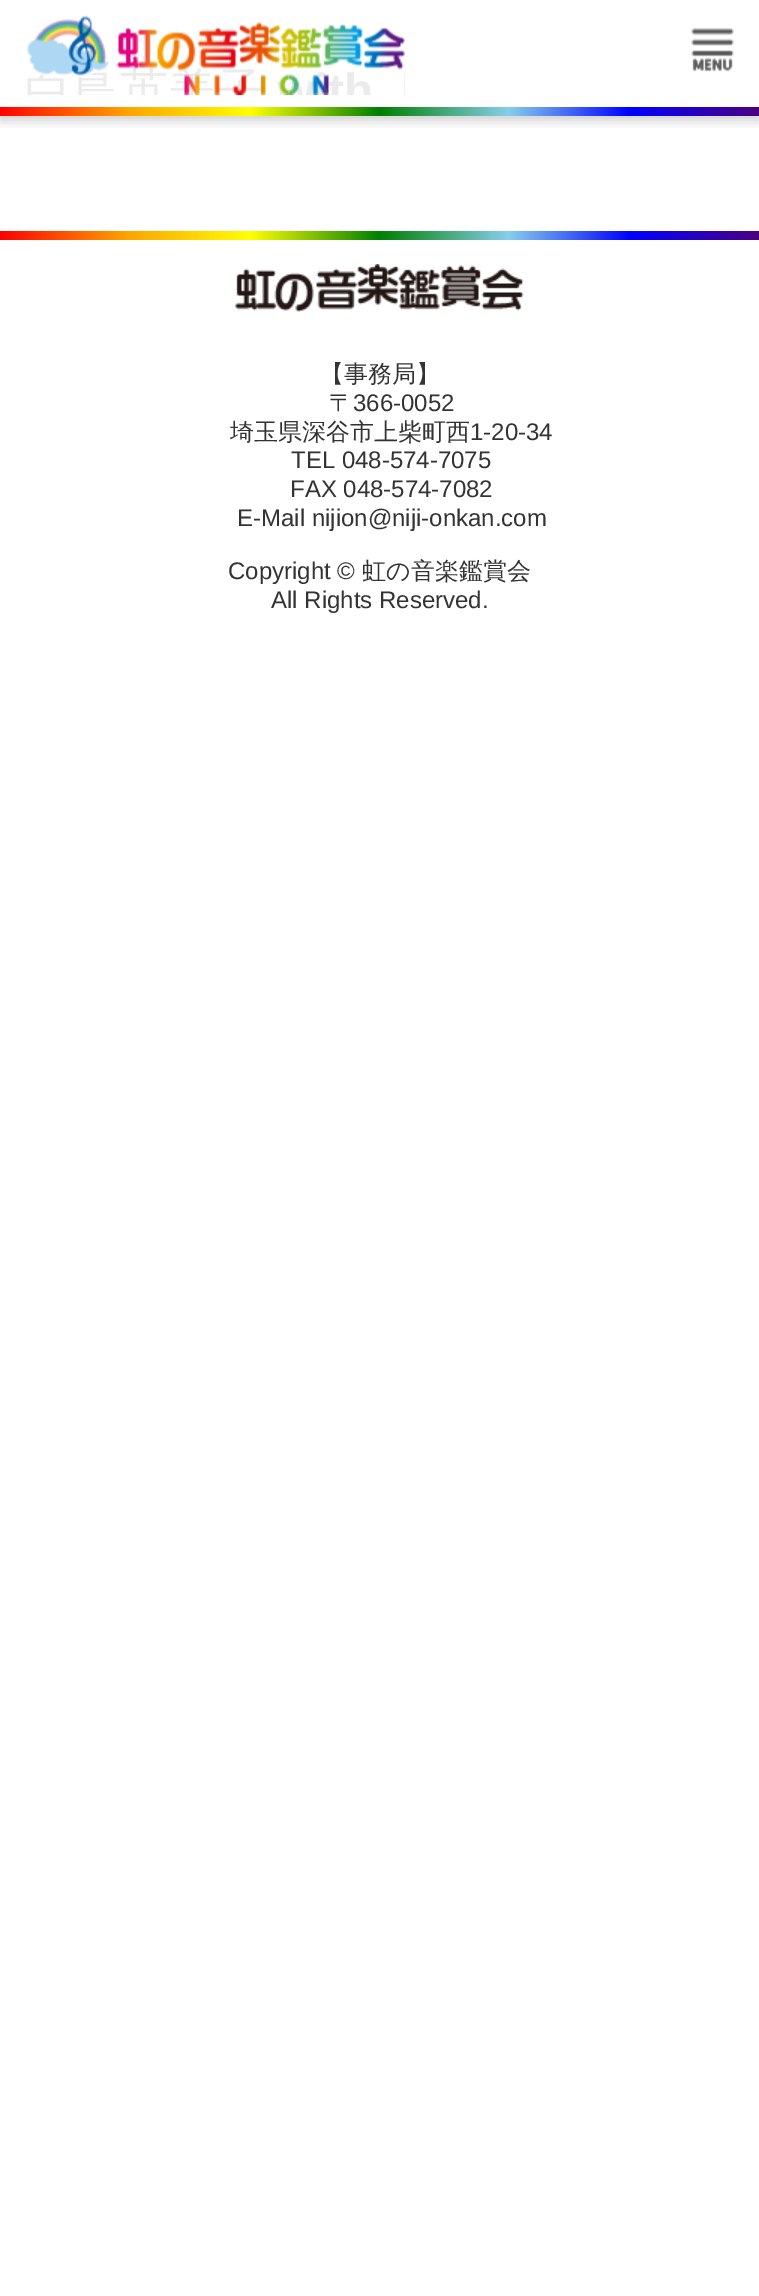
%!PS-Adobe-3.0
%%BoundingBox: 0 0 759 2296
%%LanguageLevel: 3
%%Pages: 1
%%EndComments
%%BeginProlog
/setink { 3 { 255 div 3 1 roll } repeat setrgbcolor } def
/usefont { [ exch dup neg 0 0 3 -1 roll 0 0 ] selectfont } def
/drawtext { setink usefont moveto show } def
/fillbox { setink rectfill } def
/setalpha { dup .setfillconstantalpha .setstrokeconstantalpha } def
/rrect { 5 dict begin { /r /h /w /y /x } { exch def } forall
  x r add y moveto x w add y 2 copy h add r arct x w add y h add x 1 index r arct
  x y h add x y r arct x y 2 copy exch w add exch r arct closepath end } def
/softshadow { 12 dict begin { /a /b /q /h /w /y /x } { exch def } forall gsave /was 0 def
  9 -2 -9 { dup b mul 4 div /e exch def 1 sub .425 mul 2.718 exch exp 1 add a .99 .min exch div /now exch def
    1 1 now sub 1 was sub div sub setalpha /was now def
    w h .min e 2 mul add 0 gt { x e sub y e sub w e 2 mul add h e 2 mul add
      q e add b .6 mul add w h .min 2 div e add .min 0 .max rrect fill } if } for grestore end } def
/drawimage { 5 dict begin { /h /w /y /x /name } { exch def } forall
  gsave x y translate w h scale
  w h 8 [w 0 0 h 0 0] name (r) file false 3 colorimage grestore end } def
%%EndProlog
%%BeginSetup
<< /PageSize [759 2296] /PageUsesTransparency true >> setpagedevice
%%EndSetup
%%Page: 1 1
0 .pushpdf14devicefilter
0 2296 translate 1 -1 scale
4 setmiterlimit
0 0 759 2296 255 255 255 fillbox
gsave
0 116 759 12 rectclip
0 0 0 setink
0 5 759 115 0 6 0.2 softshadow
grestore
(assets/img1.rgb) 26 15 379 80 drawimage
(assets/img2.rgb) 691 27 43 45 drawimage
gsave 0 107 moveto 759 107 lineto 759 116 lineto 0 116 lineto closepath clip newpath
<< /ShadingType 2 /ColorSpace /DeviceRGB /Coords [0 111 759 111] /Extend [true true] /Function << /FunctionType 3 /Domain [0 1] /Functions [<< /FunctionType 2 /Domain [0 1] /C0 [1 0 0] /C1 [1 0.647 0] /N 1 >> << /FunctionType 2 /Domain [0 1] /C0 [1 0.647 0] /C1 [1 1 0] /N 1 >> << /FunctionType 2 /Domain [0 1] /C0 [1 1 0] /C1 [0 0.502 0] /N 1 >> << /FunctionType 2 /Domain [0 1] /C0 [0 0.502 0] /C1 [0.529 0.808 0.922] /N 1 >> << /FunctionType 2 /Domain [0 1] /C0 [0.529 0.808 0.922] /C1 [0 0 1] /N 1 >> << /FunctionType 2 /Domain [0 1] /C0 [0 0 1] /C1 [0.294 0 0.51] /N 1 >>] /Bounds [0.17 0.33 0.5 0.67 0.83] /Encode [0 1 0 1 0 1 0 1 0 1 0 1] >> >> shfill grestore
gsave 0 231 moveto 759 231 lineto 759 240 lineto 0 240 lineto closepath clip newpath
<< /ShadingType 2 /ColorSpace /DeviceRGB /Coords [0 236 759 235] /Extend [true true] /Function << /FunctionType 3 /Domain [0 1] /Functions [<< /FunctionType 2 /Domain [0 1] /C0 [1 0 0] /C1 [1 0.647 0] /N 1 >> << /FunctionType 2 /Domain [0 1] /C0 [1 0.647 0] /C1 [1 1 0] /N 1 >> << /FunctionType 2 /Domain [0 1] /C0 [1 1 0] /C1 [0 0.502 0] /N 1 >> << /FunctionType 2 /Domain [0 1] /C0 [0 0.502 0] /C1 [0.529 0.808 0.922] /N 1 >> << /FunctionType 2 /Domain [0 1] /C0 [0.529 0.808 0.922] /C1 [0 0 1] /N 1 >> << /FunctionType 2 /Domain [0 1] /C0 [0 0 1] /C1 [0.294 0 0.51] /N 1 >>] /Bounds [0.17 0.33 0.5 0.67 0.83] /Encode [0 1 0 1 0 1 0 1 0 1 0 1] >> >> shfill grestore
(assets/img3.rgb) 235 264 289 48 drawimage
(【事務局】) 320 382 /WenQuanYiZenHei-Medium 24 51 51 51 drawtext
(〒) 329 411 /WenQuanYiZenHei-Medium 24 51 51 51 drawtext
(366-0052) 353 411 /LiberationSans-Regular 24 51 51 51 drawtext
(埼玉県深谷市上柴町西) 230 440 /WenQuanYiZenHei-Medium 24 51 51 51 drawtext
(1-20-34) 470 440 /LiberationSans-Regular 24 51 51 51 drawtext
(TEL 048-574-7075) 291 468 /LiberationSans-Regular 24 51 51 51 drawtext
(FAX 048-574-7082) 290 497 /LiberationSans-Regular 24 51 51 51 drawtext
(E-Mail nijion@niji-onkan.com) 237 526 /LiberationSans-Regular 24 51 51 51 drawtext
(Copyright ©) 228 579 /LiberationSans-Regular 24 51 51 51 drawtext
(虹の音楽鑑賞会) 362 579 /WenQuanYiZenHei-Medium 24 51 51 51 drawtext
(All Rights Reserved.) 271 608 /LiberationSans-Regular 24 51 51 51 drawtext
.poppdf14devicefilter showpage
%%EOF
